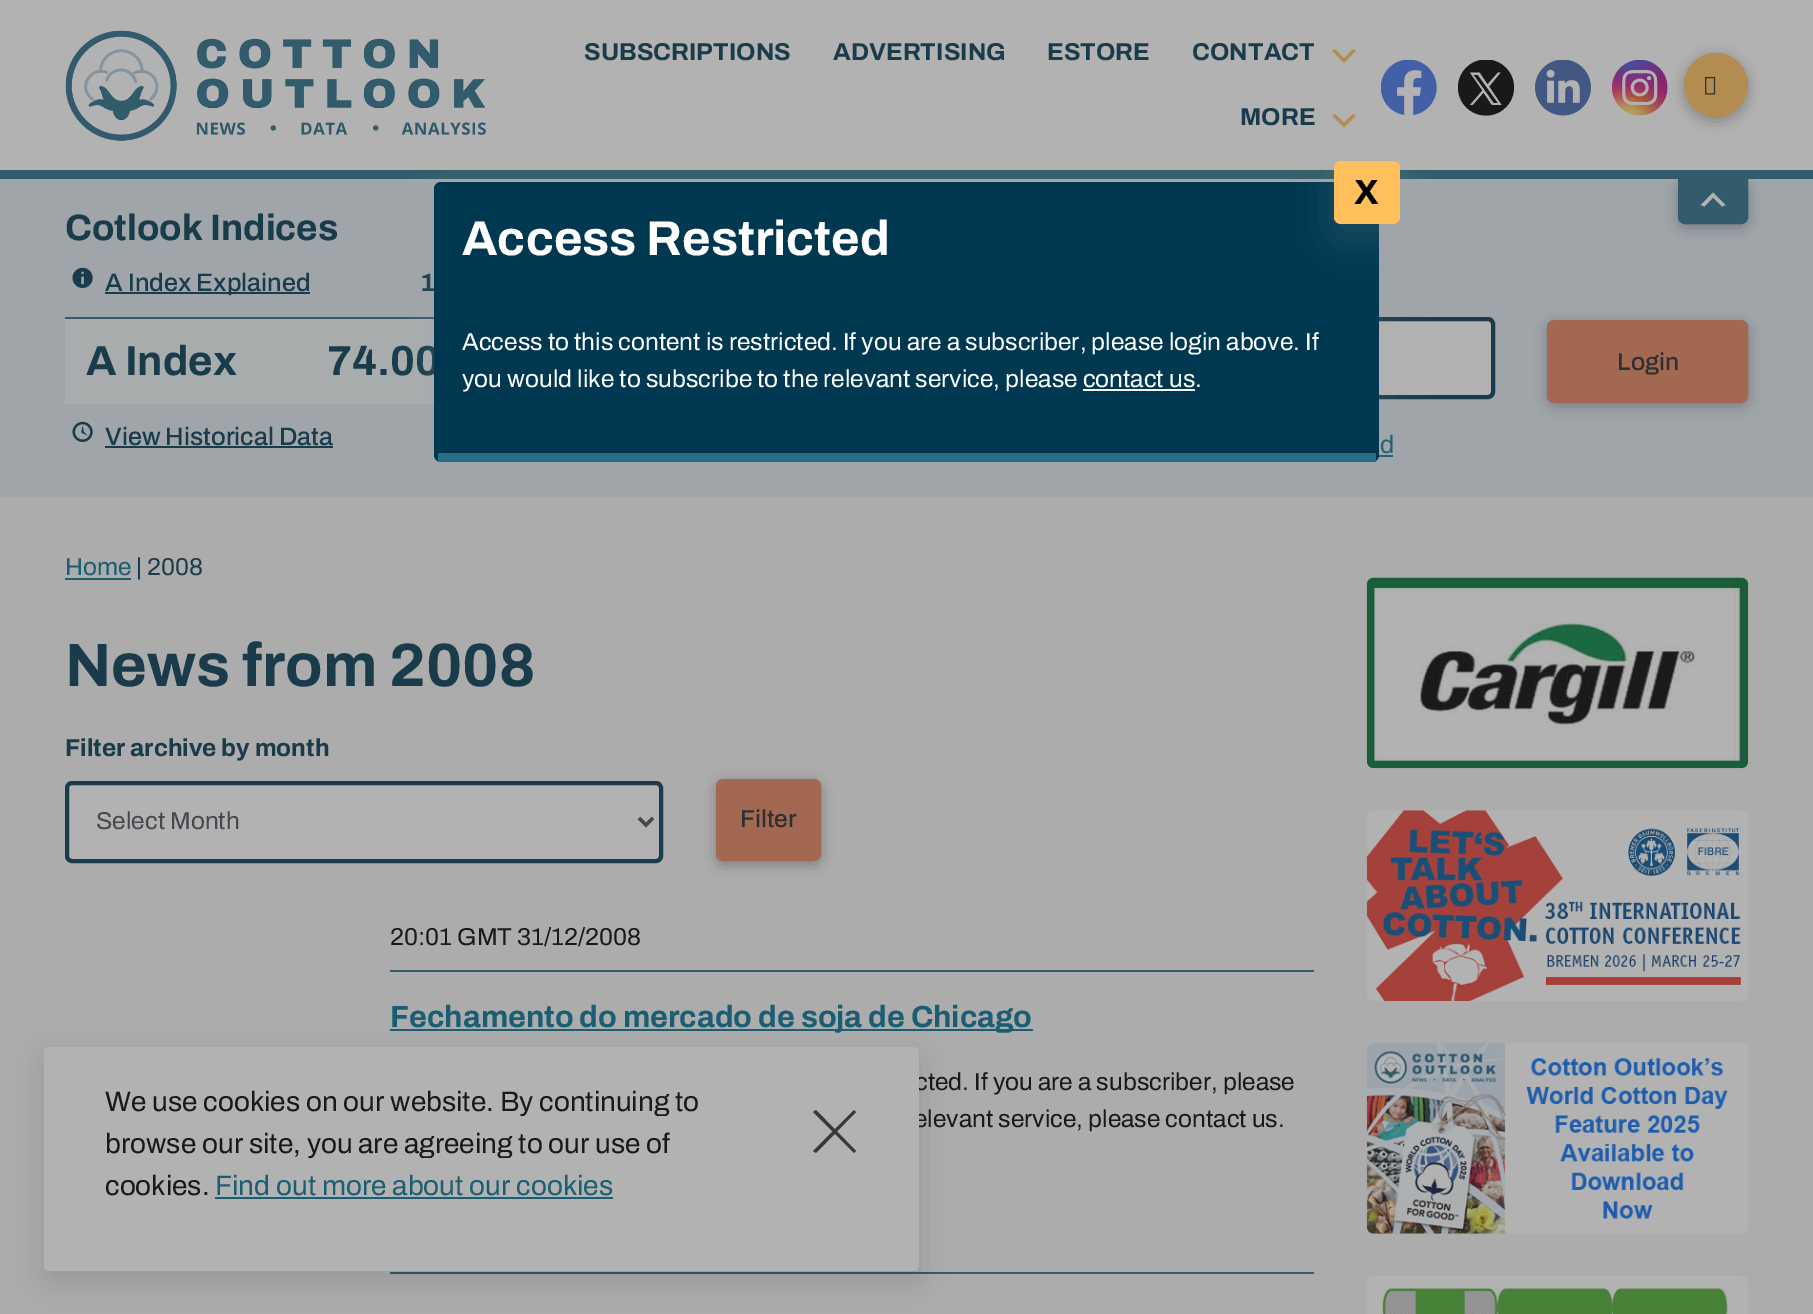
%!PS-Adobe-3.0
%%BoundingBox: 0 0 1813 1314
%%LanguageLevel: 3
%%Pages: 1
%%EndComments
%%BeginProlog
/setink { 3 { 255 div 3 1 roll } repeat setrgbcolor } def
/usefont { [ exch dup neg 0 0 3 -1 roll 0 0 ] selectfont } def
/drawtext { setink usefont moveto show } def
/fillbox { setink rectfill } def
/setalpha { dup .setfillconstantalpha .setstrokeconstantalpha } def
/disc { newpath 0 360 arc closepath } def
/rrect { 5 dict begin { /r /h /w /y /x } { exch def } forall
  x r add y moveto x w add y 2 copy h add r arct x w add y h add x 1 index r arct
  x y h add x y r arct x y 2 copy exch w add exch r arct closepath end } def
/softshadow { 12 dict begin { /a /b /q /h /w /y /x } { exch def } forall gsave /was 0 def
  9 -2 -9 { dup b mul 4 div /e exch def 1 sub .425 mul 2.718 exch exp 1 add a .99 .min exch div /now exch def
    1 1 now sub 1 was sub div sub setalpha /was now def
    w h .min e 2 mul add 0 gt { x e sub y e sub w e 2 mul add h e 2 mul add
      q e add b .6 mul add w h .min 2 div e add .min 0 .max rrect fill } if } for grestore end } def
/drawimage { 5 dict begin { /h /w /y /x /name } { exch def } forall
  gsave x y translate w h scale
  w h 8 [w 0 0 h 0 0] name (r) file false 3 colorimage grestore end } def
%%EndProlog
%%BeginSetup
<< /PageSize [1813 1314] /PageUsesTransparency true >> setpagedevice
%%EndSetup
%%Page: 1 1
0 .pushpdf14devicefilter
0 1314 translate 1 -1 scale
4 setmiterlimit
0 0 1813 1314 172 172 172 fillbox
0 179 1813 318 160 165 169 fillbox
25 25 25 setink
1678 182 70 46 7 7 0.3 softshadow
0 0 1813 170 178 178 178 fillbox
0 170 1813 9 50 91 107 fillbox
(assets/img1.rgb) 65 30 421 111 drawimage
(SUBSCRIPTIONS) 584 60 /Archivo-Bold 24.5 25 59 74 drawtext
(ADVERTISING) 833 60 /Archivo-Bold 24.5 25 59 74 drawtext
(ESTORE) 1047 60 /Archivo-Bold 24.5 25 59 74 drawtext
(CONTACT) 1192 60 /Archivo-Bold 24.5 25 59 74 drawtext
178 140 80 setink
1335 49 moveto 1344 58 lineto 1353 49 lineto 1356 50.5 lineto 1344 63 lineto 1332 50.5 lineto closepath fill
(MORE) 1240 125 /Archivo-Bold 24.5 25 59 74 drawtext
178 140 80 setink
1335 114 moveto 1344 122.5 lineto 1353 114 lineto 1356 115.5 lineto 1344 127.5 lineto 1332 115.5 lineto closepath fill
(assets/img2.rgb) 1381 60 56 56 drawimage
gsave
1458 60 56 56 rectclip
25 25 25 setink
1486 87.5 28 disc fill
grestore
178 178 178 setink
1489 86.5 moveto 1500.5 72.5 lineto 1498 72.5 lineto 1487.5 84.5 lineto 1479.5 72.5 lineto 1470 72.5 lineto 1482.5 90.5 lineto 1470 105 lineto 1472.5 105 lineto 1483.5 92.5 lineto 1492 105 lineto 1501.5 105 lineto closepath 1485 91 moveto 1473.5 75 lineto 1478 75 lineto 1498 103 lineto 1493.5 103 lineto closepath fill
(assets/img3.rgb) 1535 60 56 56 drawimage
(assets/img4.rgb) 1612 60 56 56 drawimage
25 25 25 setink
1684 56 64 65 32 7 0.3 softshadow
178 140 80 setink
1716 85 30 disc gsave fill grestore
4 setlinewidth
stroke
(assets/img5.rgb) 1705 77 11 18 drawimage
(Cotlook Indices) 65 240 /Archivo-Bold 36.75 25 59 74 drawtext
(assets/img6.rgb) 72 267 21 21 drawimage
105 292 205 2 25 59 74 fillbox
(A Index Explained) 105 291 /Archivo-Medium 25.25 25 59 74 drawtext
(1) 420 291 /Archivo-Bold 25.25 25 59 74 drawtext
65 319 369 85 169 172 173 fillbox
(A Index) 86 375 /Archivo-Bold 42 25 59 74 drawtext
65 317 369 2 50 91 107 fillbox
(74.00) 327 375 /Archivo-Bold 42 25 59 74 drawtext
(assets/img7.rgb) 72 421 21 21 drawimage
(View Historical Data) 105 445 /Archivo-Medium 25.25 25 59 74 drawtext
105 446 228 2 25 59 74 fillbox
25 25 25 setink
1547 324 201 82 7 7 0.3 softshadow
163 104 81 setink
1549 322 197 79 5 rrect gsave fill grestore
stroke
(Login) 1617 370 /Archivo-Medium 24.5 45 47 50 drawtext
178 178 178 setink
1169 319 324 78 5 rrect gsave fill grestore
25 59 74 setink
stroke
(d) 1380 453 /Archivo-Regular 25.25 25 94 115 drawtext
1378 455 15 2 25 94 115 fillbox
50 91 107 setink
1680 181 moveto 1746 181 lineto 1746 217 lineto 1746 220 1744 222 1741 222 curveto 1685 222 lineto 1682 222 1680 220 1680 217 curveto closepath gsave fill grestore
stroke
178 178 178 setink
1722 206.5 moveto 1713 197.5 lineto 1704.5 206.5 lineto 1701 205 lineto 1713 192.5 lineto 1725.5 205 lineto closepath fill
149 157 165 setink
434 196 945 280 7 21 0.2 softshadow
0 56 81 setink
434 182 945 280 7 rrect fill
438 453 938 9 41 109 137 fillbox
149 157 165 setink
1334 175 66 63 7 21 0.2 softshadow
255 191 91 setink
1334 161 66 63 7 rrect fill
(X) 1354 204 /Archivo-Bold 35 0 0 0 drawtext
(Access Restricted) 462 255 /Archivo-Bold 49 255 255 255 drawtext
(Access to this content is restricted. If you are a subscriber, please login above. If) 462 350 /Archivo-Regular 24.5 255 255 255 drawtext
(you would like to subscribe to the relevant service, please contact us.) 462 387 /Archivo-Regular 24.5 255 255 255 drawtext
1083 389 112 2 255 255 255 fillbox
(Home) 65 575 /Archivo-Regular 24.5 25 94 115 drawtext
65 578 66 2 25 94 115 fillbox
(| 2008) 136 575 /Archivo-Regular 24.5 25 59 74 drawtext
(News from 2008) 65 686 /Archivo-Bold 61.25 25 59 74 drawtext
(Filter archive by month) 65 756 /Archivo-Bold 24.5 25 59 74 drawtext
178 178 178 setink
67 783 594 78 5 rrect gsave fill grestore
25 59 74 setink
stroke
69 73 77 setink
3.5 setlinewidth
639 818 moveto 646 825 lineto 653 818 lineto stroke
(Select Month) 96 829 /Archivo-Regular 24.5 69 73 77 drawtext
25 25 25 setink
716 782 105 83 7 7 0.3 softshadow
163 104 81 setink
718 781 101 78 5 rrect gsave fill grestore
4 setlinewidth
stroke
(Filter) 740 827 /Archivo-Medium 24.5 45 47 50 drawtext
390 970 924 2 50 91 107 fillbox
(20:01 GMT 31/12/2008) 390 945 /Archivo-Regular 24.5 25 25 25 drawtext
390 1029 643 2 25 94 115 fillbox
(Fechamento do mercado de soja de Chicago) 390 1027 /Archivo-Bold 30.6 25 94 115 drawtext
(cted. If you are a subscriber, please) 915 1090 /Archivo-Regular 24.5 25 25 25 drawtext
(elevant service, please contact us.) 914 1127 /Archivo-Regular 24.5 25 25 25 drawtext
390 1272 924 2 50 91 107 fillbox
(assets/img8.rgb) 1366 577 383 192 drawimage
(assets/img9.rgb) 1366 810 382 191 drawimage
(assets/img10.rgb) 1366 1043 382 191 drawimage
(assets/img11.rgb) 1367 1276 381 38 drawimage
25 25 25 setink
44 1057 875 224 5 14 0.15 softshadow
178 178 178 setink
44 1047 875 224 5 rrect fill
(We use cookies on our website. By continuing to) 105 1111 /Archivo-Regular 28 25 25 25 drawtext
(browse our site, you are agreeing to our use of) 105 1153 /Archivo-Regular 28 25 25 25 drawtext
56 56 56 setink
854 1110 moveto 856 1112 lineto 816 1153 lineto 813 1151 lineto closepath fill
813 1112 moveto 816 1110 lineto 856 1151 lineto 854 1153 lineto closepath fill
(cookies.) 105 1195 /Archivo-Regular 28 25 25 25 drawtext
(Find out more about our cookies) 215 1195 /Archivo-Regular 28 25 94 115 drawtext
215 1197 398 2 25 94 115 fillbox
.poppdf14devicefilter showpage
%%EOF
